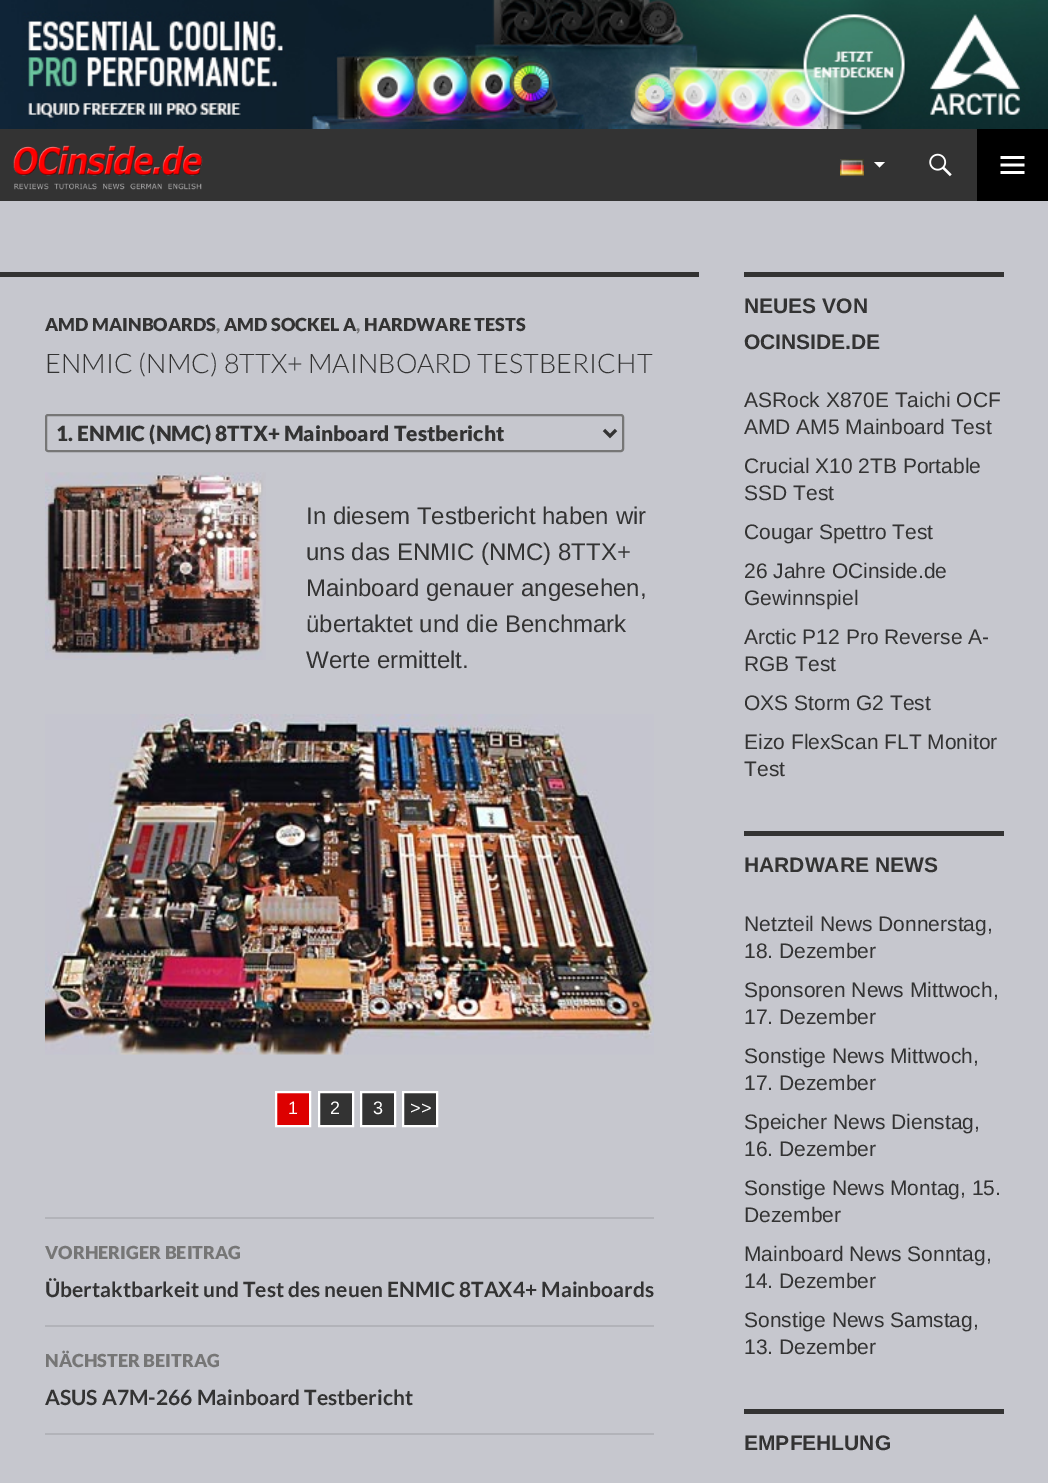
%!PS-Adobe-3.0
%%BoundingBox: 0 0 1048 1483
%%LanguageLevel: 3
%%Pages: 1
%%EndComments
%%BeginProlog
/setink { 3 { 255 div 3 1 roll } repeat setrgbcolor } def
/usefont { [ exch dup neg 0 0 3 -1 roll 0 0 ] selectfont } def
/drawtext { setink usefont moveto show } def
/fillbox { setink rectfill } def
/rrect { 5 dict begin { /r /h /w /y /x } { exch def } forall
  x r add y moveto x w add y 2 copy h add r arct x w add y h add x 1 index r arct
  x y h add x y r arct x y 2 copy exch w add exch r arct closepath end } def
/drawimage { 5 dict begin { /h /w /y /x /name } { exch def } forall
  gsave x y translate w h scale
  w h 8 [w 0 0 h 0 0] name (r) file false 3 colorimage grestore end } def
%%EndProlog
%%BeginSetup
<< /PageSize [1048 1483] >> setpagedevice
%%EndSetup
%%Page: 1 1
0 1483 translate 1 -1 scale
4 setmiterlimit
0 0 1048 1483 198 199 206 fillbox
(assets/img1.rgb) 0 0 1048 129 drawimage
0 129 977 72 51 51 51 fillbox
(assets/img2.rgb) 13 145 190 45 drawimage
(assets/img3.rgb) 840 159 24 17 drawimage
255 255 255 setink
874 162 moveto 879.5 167.5 lineto 885 162 lineto closepath fill
(assets/img4.rgb) 929 153 23 24 drawimage
977 129 71 72 0 0 0 fillbox
(assets/img5.rgb) 1000 156 25 18 drawimage
0 272 699 5 51 51 51 fillbox
(AMD MAINBOARDS) 45 331 /Lato-Black 18 51 51 51 drawtext
(,) 216 331 /Lato-Black 18 118 118 118 drawtext
(AMD SOCKEL A) 224 331 /Lato-Black 18 51 51 51 drawtext
(,) 356 331 /Lato-Black 18 118 118 118 drawtext
(HARDWARE TESTS) 364 331 /Lato-Black 18 51 51 51 drawtext
(ENMIC \(NMC\) 8TTX+ MAINBOARD TESTBERICHT) 45 373 /Lato-Light 27 51 51 51 drawtext
118 118 118 setink
2 setlinewidth
46 415 577 36 2 rrect stroke
51 51 51 setink
3 setlinewidth
604 430 moveto 610 436 lineto 616 430 lineto stroke
(1. ENMIC \(NMC\) 8TTX+ Mainboard Testbericht) 56 441 /Lato-Black 21 51 51 51 drawtext
(assets/img6.rgb) 45 472 221 188 drawimage
(In diesem Testbericht haben wir) 306 524 /LiberationSans-Regular 24 51 51 51 drawtext
(uns das ENMIC \(NMC\) 8TTX+) 306 560 /LiberationSans-Regular 24 51 51 51 drawtext
(Mainboard genauer angesehen,) 306 596 /LiberationSans-Regular 24 51 51 51 drawtext
(übertaktet und die Benchmark) 306 632 /LiberationSans-Regular 24 51 51 51 drawtext
(Werte ermittelt.) 306 668 /LiberationSans-Regular 24 51 51 51 drawtext
(assets/img7.rgb) 45 714 609 341 drawimage
221 0 0 setink
276 1092 moveto 310 1092 lineto 310 1126 lineto 276 1126 lineto closepath gsave fill grestore
255 255 255 setink
2 setlinewidth
stroke
(1) 288 1114 /LiberationSans-Regular 18 255 255 255 drawtext
51 51 51 setink
319 1092 moveto 353 1092 lineto 353 1126 lineto 319 1126 lineto closepath gsave fill grestore
255 255 255 setink
stroke
(2) 330 1114 /LiberationSans-Regular 18 255 255 255 drawtext
51 51 51 setink
361 1092 moveto 395 1092 lineto 395 1126 lineto 361 1126 lineto closepath gsave fill grestore
255 255 255 setink
stroke
(3) 373 1114 /LiberationSans-Regular 18 255 255 255 drawtext
51 51 51 setink
403 1092 moveto 437 1092 lineto 437 1126 lineto 403 1126 lineto closepath gsave fill grestore
255 255 255 setink
stroke
(>>) 410 1114 /LiberationSans-Regular 18 255 255 255 drawtext
45 1217 609 2 178 179 185 fillbox
45 1325 609 2 178 179 185 fillbox
(VORHERIGER BEITRAG) 45 1259 /Lato-Black 18 118 118 118 drawtext
(Übertaktbarkeit und Test des neuen ENMIC 8TAX4+ Mainboards) 45 1297 /Lato-Bold 21 51 51 51 drawtext
45 1433 609 2 178 179 185 fillbox
(NÄCHSTER BEITRAG) 45 1367 /Lato-Black 18 118 118 118 drawtext
(ASUS A7M-266 Mainboard Testbericht) 45 1405 /Lato-Bold 21 51 51 51 drawtext
744 272 260 5 51 51 51 fillbox
(NEUES VON) 744 313 /LiberationSans-Bold 21 51 51 51 drawtext
(OCINSIDE.DE) 744 349 /LiberationSans-Bold 21 51 51 51 drawtext
(ASRock X870E Taichi OCF) 744 407 /LiberationSans-Regular 21 51 51 51 drawtext
(AMD AM5 Mainboard Test) 744 434 /LiberationSans-Regular 21 51 51 51 drawtext
(Crucial X10 2TB Portable) 744 473 /LiberationSans-Regular 21 51 51 51 drawtext
(SSD Test) 744 500 /LiberationSans-Regular 21 51 51 51 drawtext
(Cougar Spettro Test) 744 539 /LiberationSans-Regular 21 51 51 51 drawtext
(26 Jahre OCinside.de) 744 578 /LiberationSans-Regular 21 51 51 51 drawtext
(Gewinnspiel) 744 605 /LiberationSans-Regular 21 51 51 51 drawtext
(Arctic P12 Pro Reverse A-) 744 644 /LiberationSans-Regular 21 51 51 51 drawtext
(RGB Test) 744 671 /LiberationSans-Regular 21 51 51 51 drawtext
(OXS Storm G2 Test) 744 710 /LiberationSans-Regular 21 51 51 51 drawtext
(Eizo FlexScan FLT Monitor) 744 749 /LiberationSans-Regular 21 51 51 51 drawtext
(Test) 744 776 /LiberationSans-Regular 21 51 51 51 drawtext
744 831 260 5 51 51 51 fillbox
(HARDWARE NEWS) 744 872 /LiberationSans-Bold 21 51 51 51 drawtext
(Netzteil News Donnerstag,) 744 931 /LiberationSans-Regular 21 51 51 51 drawtext
(18. Dezember) 744 958 /LiberationSans-Regular 21 51 51 51 drawtext
(Sponsoren News Mittwoch,) 744 997 /LiberationSans-Regular 21 51 51 51 drawtext
(17. Dezember) 744 1024 /LiberationSans-Regular 21 51 51 51 drawtext
(Sonstige News Mittwoch,) 744 1063 /LiberationSans-Regular 21 51 51 51 drawtext
(17. Dezember) 744 1090 /LiberationSans-Regular 21 51 51 51 drawtext
(Speicher News Dienstag,) 744 1129 /LiberationSans-Regular 21 51 51 51 drawtext
(16. Dezember) 744 1156 /LiberationSans-Regular 21 51 51 51 drawtext
(Sonstige News Montag, 15.) 744 1195 /LiberationSans-Regular 21 51 51 51 drawtext
(Dezember) 744 1222 /LiberationSans-Regular 21 51 51 51 drawtext
(Mainboard News Sonntag,) 744 1261 /LiberationSans-Regular 21 51 51 51 drawtext
(14. Dezember) 744 1288 /LiberationSans-Regular 21 51 51 51 drawtext
(Sonstige News Samstag,) 744 1327 /LiberationSans-Regular 21 51 51 51 drawtext
(13. Dezember) 744 1354 /LiberationSans-Regular 21 51 51 51 drawtext
744 1409 260 5 51 51 51 fillbox
(EMPFEHLUNG) 744 1450 /LiberationSans-Bold 21 51 51 51 drawtext
showpage
%%EOF
